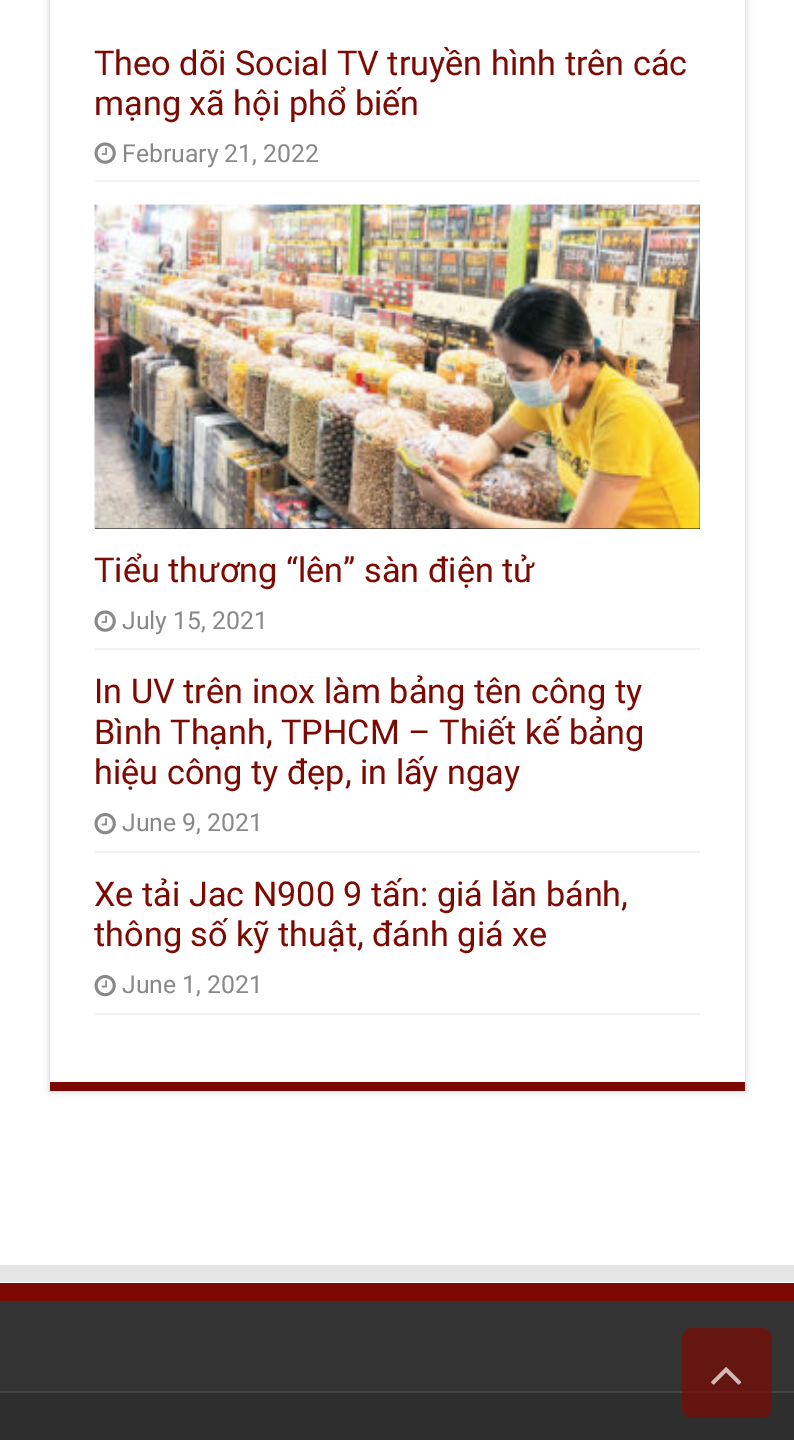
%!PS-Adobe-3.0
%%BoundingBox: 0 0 794 1440
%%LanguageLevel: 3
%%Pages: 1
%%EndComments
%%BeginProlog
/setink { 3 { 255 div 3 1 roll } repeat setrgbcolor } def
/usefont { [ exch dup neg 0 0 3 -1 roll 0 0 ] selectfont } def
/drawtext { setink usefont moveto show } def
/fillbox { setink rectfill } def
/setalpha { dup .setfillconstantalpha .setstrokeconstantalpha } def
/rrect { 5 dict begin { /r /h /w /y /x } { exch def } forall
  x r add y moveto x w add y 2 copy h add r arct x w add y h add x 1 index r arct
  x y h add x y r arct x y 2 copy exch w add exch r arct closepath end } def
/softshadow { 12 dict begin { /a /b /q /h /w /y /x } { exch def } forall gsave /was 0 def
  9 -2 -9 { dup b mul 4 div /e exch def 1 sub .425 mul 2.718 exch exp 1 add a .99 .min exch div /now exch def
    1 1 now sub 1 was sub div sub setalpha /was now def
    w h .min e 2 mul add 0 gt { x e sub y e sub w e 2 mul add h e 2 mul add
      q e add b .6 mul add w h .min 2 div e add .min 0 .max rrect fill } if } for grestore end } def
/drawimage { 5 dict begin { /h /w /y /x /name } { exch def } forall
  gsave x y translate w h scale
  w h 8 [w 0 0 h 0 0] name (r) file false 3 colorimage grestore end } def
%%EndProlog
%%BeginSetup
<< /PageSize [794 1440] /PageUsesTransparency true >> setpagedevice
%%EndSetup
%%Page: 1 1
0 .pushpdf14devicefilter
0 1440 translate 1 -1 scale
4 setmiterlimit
0 0 794 1440 255 255 255 fillbox
202 202 202 setink
50 -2 695 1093 0 3.5 1 softshadow
50 0 695 1082 255 255 255 fillbox
50 1082 695 9 124 10 2 fillbox
(Theo dõi Social TV truyền hình trên các) 94 75 /Roboto-Regular 34.25 124 10 2 drawtext
(mạng xã hội phổ biến) 94 115 /Roboto-Regular 34.25 124 10 2 drawtext
95 180 605 2 242 242 242 fillbox
(assets/img1.rgb) 94 142 22 22 drawimage
(February 21, 2022) 122 162 /Roboto-Regular 24.75 136 136 136 drawtext
95 205 605 324 0 0 0 fillbox
(assets/img2.rgb) 94 204 606 325 drawimage
(Tiểu thương “lên” sàn điện tử) 94 582 /Roboto-Regular 34.25 124 10 2 drawtext
95 648 605 2 242 242 242 fillbox
(assets/img1.rgb) 94 610 22 22 drawimage
(July 15, 2021) 122 629 /Roboto-Regular 24.75 136 136 136 drawtext
(In UV trên inox làm bảng tên công ty) 94 703 /Roboto-Regular 34.25 124 10 2 drawtext
(Bình Thạnh, TPHCM – Thiết kế bảng) 94 744 /Roboto-Regular 34.25 124 10 2 drawtext
(hiệu công ty đẹp, in lấy ngay) 94 784 /Roboto-Regular 34.25 124 10 2 drawtext
95 851 605 2 242 242 242 fillbox
(assets/img3.rgb) 94 813 22 22 drawimage
(June 9, 2021) 122 831 /Roboto-Regular 24.75 136 136 136 drawtext
(Xe tải Jac N900 9 tấn: giá lăn bánh,) 94 906 /Roboto-Regular 34.25 124 10 2 drawtext
(thông số kỹ thuật, đánh giá xe) 94 946 /Roboto-Regular 34.25 124 10 2 drawtext
95 1013 605 2 242 242 242 fillbox
(assets/img3.rgb) 94 975 22 22 drawimage
(June 1, 2021) 122 993 /Roboto-Regular 24.75 136 136 136 drawtext
0 1265 794 17 230 230 230 fillbox
0 1301 794 90 51 51 51 fillbox
0 1283 794 18 124 10 2 fillbox
0 1393 794 47 46 46 46 fillbox
0 1391 794 2 68 68 68 fillbox
0.7 setalpha
124 10 2 setink
682 1328 90 90 11 rrect fill
1 setalpha
(assets/img4.rgb) 711 1367 31 18 drawimage
.poppdf14devicefilter showpage
%%EOF
